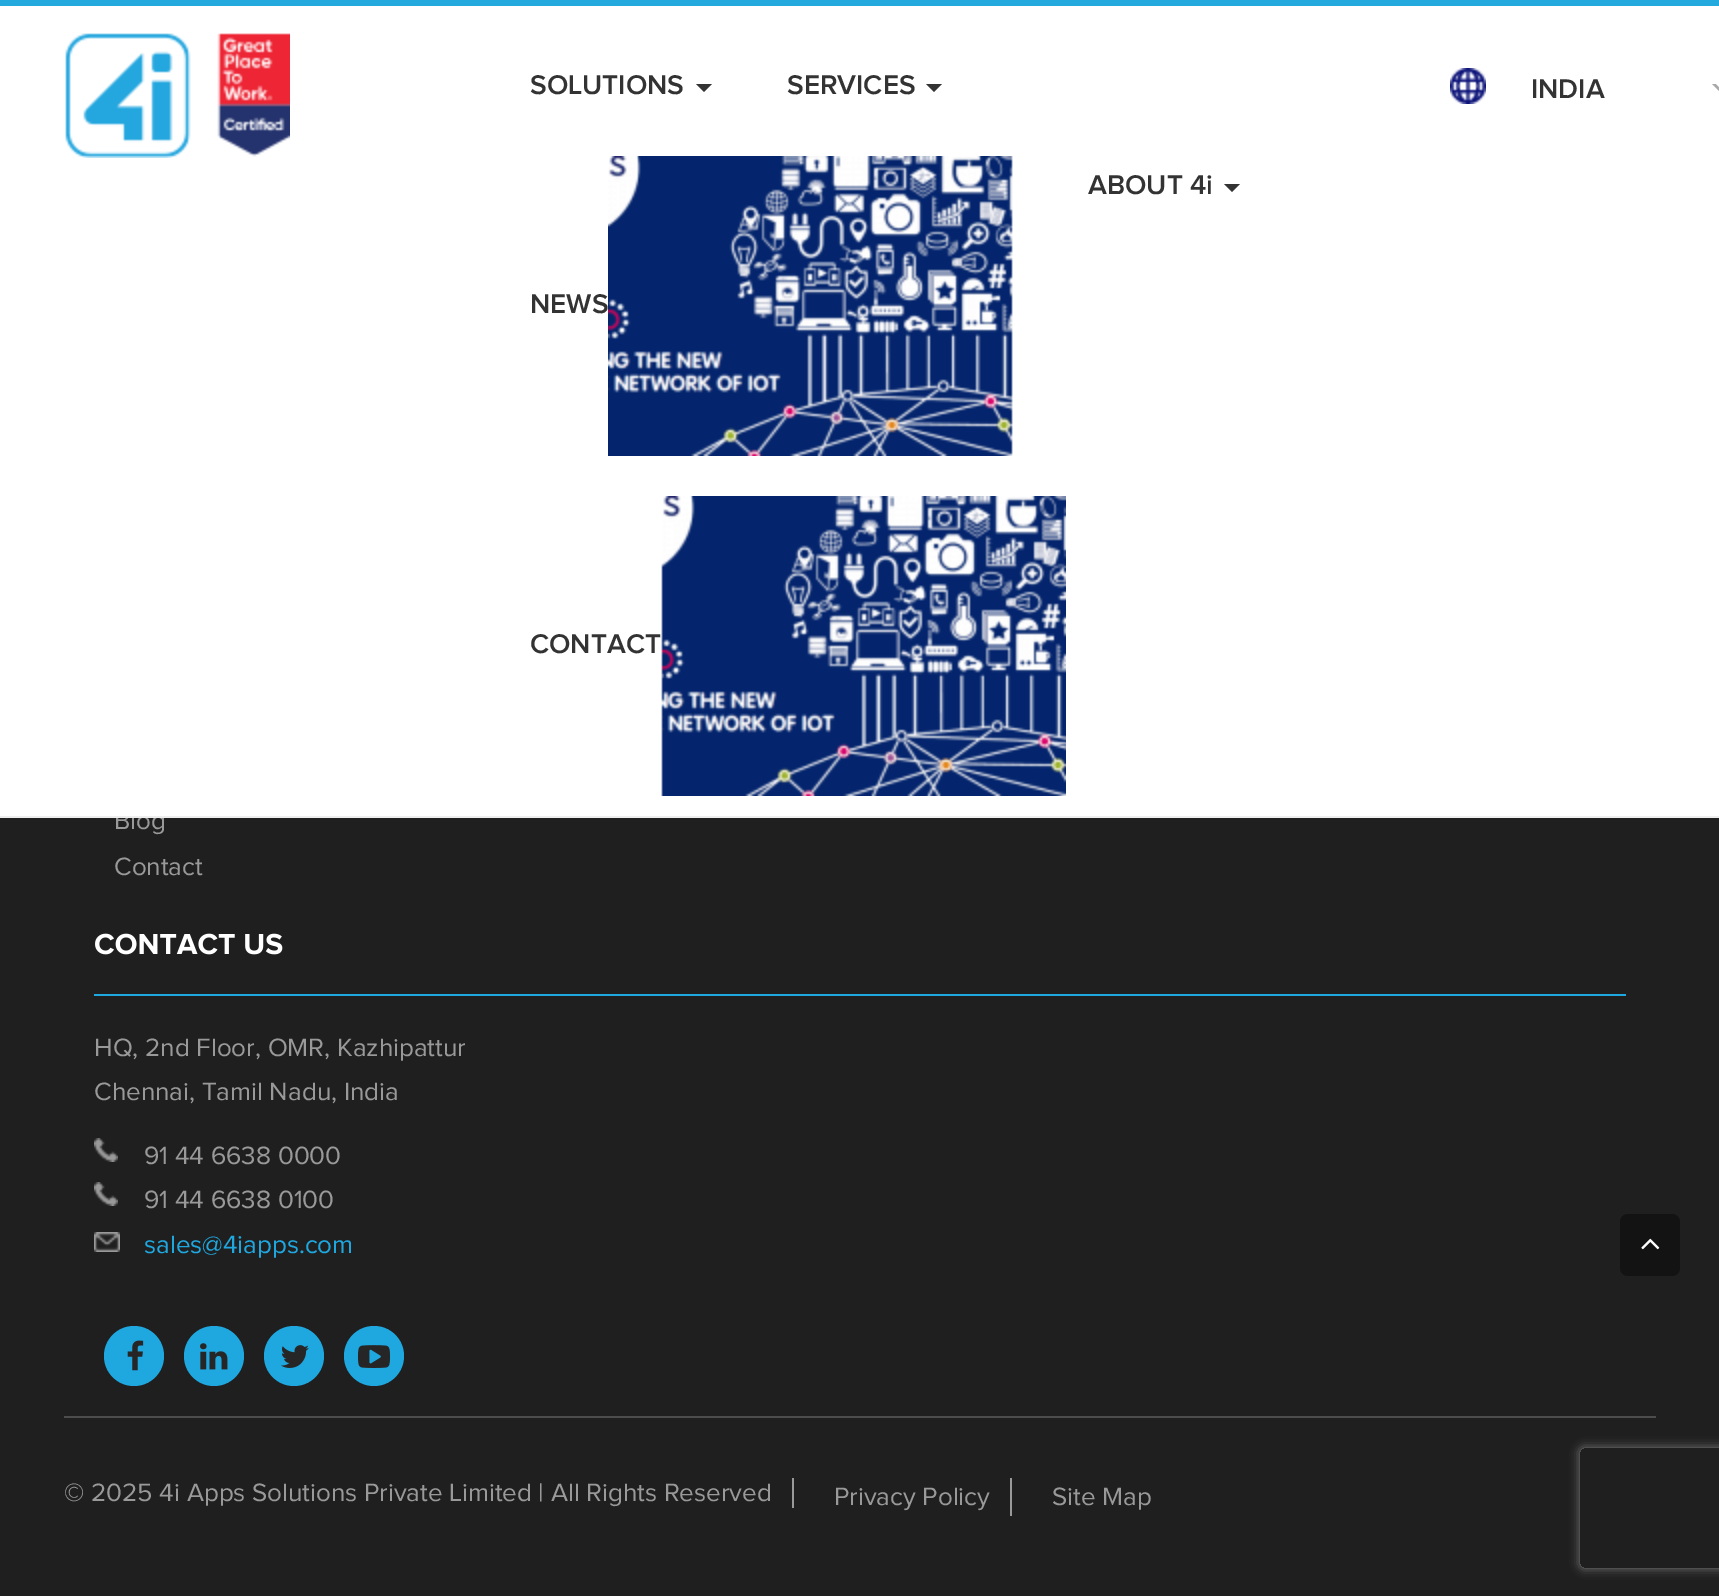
%!PS-Adobe-3.0
%%BoundingBox: 0 0 1719 1596
%%LanguageLevel: 3
%%Pages: 1
%%EndComments
%%BeginProlog
/setink { 3 { 255 div 3 1 roll } repeat setrgbcolor } def
/usefont { [ exch dup neg 0 0 3 -1 roll 0 0 ] selectfont } def
/drawtext { setink usefont moveto show } def
/fillbox { setink rectfill } def
/setalpha { dup .setfillconstantalpha .setstrokeconstantalpha } def
/disc { newpath 0 360 arc closepath } def
/rrect { 5 dict begin { /r /h /w /y /x } { exch def } forall
  x r add y moveto x w add y 2 copy h add r arct x w add y h add x 1 index r arct
  x y h add x y r arct x y 2 copy exch w add exch r arct closepath end } def
/softshadow { 12 dict begin { /a /b /q /h /w /y /x } { exch def } forall gsave /was 0 def
  9 -2 -9 { dup b mul 4 div /e exch def 1 sub .425 mul 2.718 exch exp 1 add a .99 .min exch div /now exch def
    1 1 now sub 1 was sub div sub setalpha /was now def
    w h .min e 2 mul add 0 gt { x e sub y e sub w e 2 mul add h e 2 mul add
      q e add b .6 mul add w h .min 2 div e add .min 0 .max rrect fill } if } for grestore end } def
/drawimage { 5 dict begin { /h /w /y /x /name } { exch def } forall
  gsave x y translate w h scale
  w h 8 [w 0 0 h 0 0] name (r) file false 3 colorimage grestore end } def
%%EndProlog
%%BeginSetup
<< /PageSize [1719 1596] /PageUsesTransparency true >> setpagedevice
%%EndSetup
%%Page: 1 1
0 .pushpdf14devicefilter
0 1596 translate 1 -1 scale
4 setmiterlimit
0 0 1719 1596 31 31 31 fillbox
(Blog) 114 829 /ProximaNova-Regular 26 153 153 153 drawtext
0 6 1719 810 255 255 255 fillbox
0 0 1719 6 36 169 223 fillbox
0 816 1719 2 238 238 238 fillbox
(assets/img1.rgb) 65 33 225 125 drawimage
(SOLUTIONS) 530 94 /ProximaNova-SemiBold 28 51 51 51 drawtext
696 84 moveto 712 84 lineto 704 92 lineto closepath fill
(SERVICES) 787 94 /ProximaNova-SemiBold 28 51 51 51 drawtext
926 84 moveto 942 84 lineto 934 92 lineto closepath fill
(ABOUT 4i) 1088 194 /ProximaNova-SemiBold 28 51 51 51 drawtext
1224 184 moveto 1240 184 lineto 1232 192 lineto closepath fill
(NEWS) 530 313 /ProximaNova-SemiBold 28 51 51 51 drawtext
(assets/img2.rgb) 608 156 405 300 drawimage
(CONTACT) 530 653 /ProximaNova-SemiBold 28 51 51 51 drawtext
(assets/img3.rgb) 661 496 405 300 drawimage
(assets/img4.rgb) 1450 68 36 36 drawimage
(INDIA) 1531 98 /ProximaNova-SemiBold 28 51 51 51 drawtext
169 169 169 setink
1712 84 moveto 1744 84 lineto 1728 100 lineto closepath fill
255 255 255 setink
1712 80 moveto 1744 80 lineto 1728 96 lineto closepath fill
19 19 19 setink
1620 1214 60 62 8 rrect fill
(assets/img5.rgb) 1641 1238 19 12 drawimage
(Contact) 114 875 /ProximaNova-Regular 26 153 153 153 drawtext
94 994 1532 2 31 167 223 fillbox
(assets/img6.rgb) 95 933 188 22 drawimage
(HQ, 2nd Floor, OMR, Kazhipattur) 94 1056 /ProximaNova-Regular 26 153 153 153 drawtext
(Chennai, Tamil Nadu, India) 94 1100 /ProximaNova-Regular 26 153 153 153 drawtext
(assets/img7.rgb) 94 1138 24 24 drawimage
(91 44 6638 0000) 144 1164 /ProximaNova-Regular 26 153 153 153 drawtext
(assets/img7.rgb) 94 1182 24 24 drawimage
(91 44 6638 0100) 144 1208 /ProximaNova-Regular 26 153 153 153 drawtext
(assets/img8.rgb) 94 1232 26 20 drawimage
(sales@4iapps.com) 144 1253 /ProximaNova-Regular 26 31 167 223 drawtext
134 1356 30 disc fill
(assets/img9.rgb) 127 1340 17 31 drawimage
214 1356 30 disc fill
(assets/img10.rgb) 200 1343 28 27 drawimage
294 1356 30 disc fill
(assets/img11.rgb) 281 1345 28 23 drawimage
374 1356 30 disc fill
(assets/img12.rgb) 358 1345 32 23 drawimage
64 1416 1592 2 76 76 76 fillbox
792 1478 2 30 153 153 153 fillbox
(© 2025 4i Apps Solutions Private Limited | All Rights Reserved) 64 1501 /ProximaNova-Regular 26 153 153 153 drawtext
1010 1478 2 38 153 153 153 fillbox
(Privacy Policy) 834 1505 /ProximaNova-Regular 26 153 153 153 drawtext
(Site Map) 1052 1505 /ProximaNova-Regular 26 153 153 153 drawtext
gsave
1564 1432 moveto 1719 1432 lineto 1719 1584 lineto 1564 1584 lineto closepath 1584 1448 moveto 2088 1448 lineto 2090 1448 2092 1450 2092 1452 curveto 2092 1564 lineto 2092 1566 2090 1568 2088 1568 curveto 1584 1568 lineto 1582 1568 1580 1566 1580 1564 curveto 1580 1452 lineto 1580 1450 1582 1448 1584 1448 curveto closepath eoclip newpath
128 128 128 setink
1580 1448 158 120 4 5 1 softshadow
grestore
.poppdf14devicefilter showpage
%%EOF
